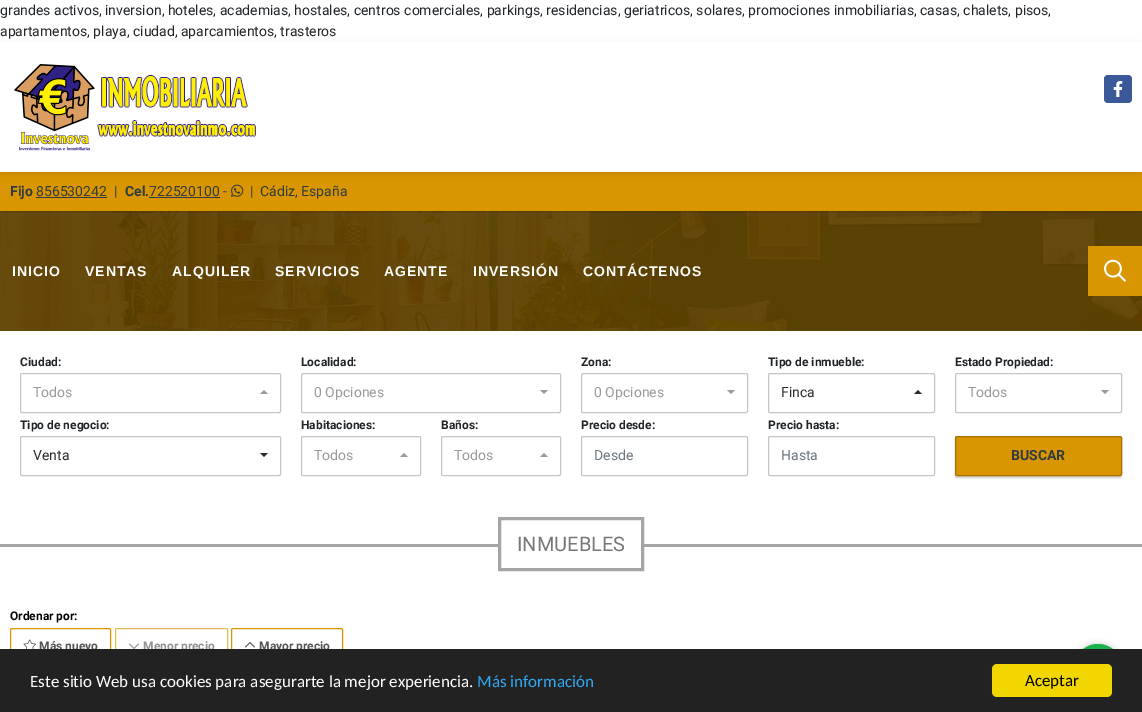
%!PS-Adobe-3.0
%%BoundingBox: 0 0 1142 712
%%LanguageLevel: 3
%%Pages: 1
%%EndComments
%%BeginProlog
/setink { 3 { 255 div 3 1 roll } repeat setrgbcolor } def
/usefont { [ exch dup neg 0 0 3 -1 roll 0 0 ] selectfont } def
/drawtext { setink usefont moveto show } def
/fillbox { setink rectfill } def
/setalpha { dup .setfillconstantalpha .setstrokeconstantalpha } def
/disc { newpath 0 360 arc closepath } def
/rrect { 5 dict begin { /r /h /w /y /x } { exch def } forall
  x r add y moveto x w add y 2 copy h add r arct x w add y h add x 1 index r arct
  x y h add x y r arct x y 2 copy exch w add exch r arct closepath end } def
/softshadow { 12 dict begin { /a /b /q /h /w /y /x } { exch def } forall gsave /was 0 def
  9 -2 -9 { dup b mul 4 div /e exch def 1 sub .425 mul 2.718 exch exp 1 add a .99 .min exch div /now exch def
    1 1 now sub 1 was sub div sub setalpha /was now def
    w h .min e 2 mul add 0 gt { x e sub y e sub w e 2 mul add h e 2 mul add
      q e add b .6 mul add w h .min 2 div e add .min 0 .max rrect fill } if } for grestore end } def
/drawimage { 5 dict begin { /h /w /y /x /name } { exch def } forall
  gsave x y translate w h scale
  w h 8 [w 0 0 h 0 0] name (r) file false 3 colorimage grestore end } def
%%EndProlog
%%BeginSetup
<< /PageSize [1142 712] /PageUsesTransparency true >> setpagedevice
%%EndSetup
%%Page: 1 1
0 .pushpdf14devicefilter
0 712 translate 1 -1 scale
4 setmiterlimit
0 0 1142 712 255 255 255 fillbox
(grandes activos, inversion, hoteles, academias, hostales, centros comerciales, parkings, residencias, geriatricos, solares, promociones inmobiliarias, casas, chalets, pisos,) 0 15 /Roboto-Regular 14 33 37 41 drawtext
(apartamentos, playa, ciudad, aparcamientos, trasteros) 0 36 /Roboto-Regular 14 33 37 41 drawtext
(assets/img4.rgb) 0 211 1142 120 drawimage
0 0 0 setink
0 172 1142 39 0 1.5 0.2 softshadow
0 172 1142 39 217 150 0 fillbox
0 0 0 setink
0 44 1142 130 0 2.5 0.09 softshadow
0 42 1142 130 255 255 255 fillbox
(assets/img1.rgb) 14 64 242 87 drawimage
59 89 152 setink
1104 75 28 28 4 rrect fill
(assets/img2.rgb) 1113 81 10 16 drawimage
(Fijo) 10 196 /Roboto-Bold 14 48 59 61 drawtext
(856530242) 36 196 /Roboto-Regular 14 48 59 61 drawtext
36 197 71 1 48 59 61 fillbox
(|) 114 196 /Roboto-Regular 14 48 59 61 drawtext
(Cel.) 125 196 /Roboto-Bold 14 48 59 61 drawtext
(722520100 -) 149 196 /Roboto-Regular 14 48 59 61 drawtext
149 197 71 1 48 59 61 fillbox
(assets/img3.rgb) 231 184 13 13 drawimage
(|) 250 196 /Roboto-Regular 14 48 59 61 drawtext
(Cádiz, España) 260 196 /Roboto-Regular 14 48 59 61 drawtext
/LiberationSans-Bold 14 usefont
255 255 255 setink
12 276 moveto 1 0 (INICIO) ashow
85 276 moveto 1 0 (VENTAS) ashow
172 276 moveto 1 0 (ALQUILER) ashow
275 276 moveto 1 0 (SERVICIOS) ashow
384 276 moveto 1 0 (AGENTE) ashow
473 276 moveto 1 0 (INVERSIÓN) ashow
583 276 moveto 1 0 (CONTÁCTENOS) ashow
1088 246 54 50 217 150 0 fillbox
(assets/img5.rgb) 1104 259 22 23 drawimage
(Ciudad:) 20 366 /Roboto-Bold 12 33 37 41 drawtext
197 197 197 setink
20.5 373.5 260 39 1.5 rrect stroke
(Todos) 33 397 /Roboto-Regular 14 153 153 153 drawtext
268 394 moveto 260 394 lineto 264 390 lineto closepath fill
(Localidad:) 301 366 /Roboto-Bold 12 33 37 41 drawtext
197 197 197 setink
301.5 373.5 259 39 1.5 rrect stroke
(0 Opciones) 314 397 /Roboto-Regular 14 153 153 153 drawtext
540 390 moveto 548 390 lineto 544 394 lineto closepath fill
(Zona:) 581 366 /Roboto-Bold 12 33 37 41 drawtext
197 197 197 setink
581.5 373.5 166 39 1.5 rrect stroke
(0 Opciones) 594 397 /Roboto-Regular 14 153 153 153 drawtext
727 390 moveto 735 390 lineto 731 394 lineto closepath fill
(Tipo de inmueble:) 768 366 /Roboto-Bold 12 33 37 41 drawtext
197 197 197 setink
768.5 373.5 166 39 1.5 rrect stroke
(Finca) 781 397 /Roboto-Regular 14 41 43 44 drawtext
922 394 moveto 914 394 lineto 918 390 lineto closepath fill
(Estado Propiedad:) 955 366 /Roboto-Bold 12 33 37 41 drawtext
197 197 197 setink
955.5 373.5 166 39 1.5 rrect stroke
(Todos) 968 397 /Roboto-Regular 14 153 153 153 drawtext
1101 390 moveto 1109 390 lineto 1105 394 lineto closepath fill
(Tipo de negocio:) 20 429 /Roboto-Bold 12 33 37 41 drawtext
197 197 197 setink
20.5 436.5 260 39 1.5 rrect stroke
(Venta) 33 460 /Roboto-Regular 14 41 43 44 drawtext
260 453 moveto 268 453 lineto 264 457 lineto closepath fill
(Habitaciones:) 301 429 /Roboto-Bold 12 33 37 41 drawtext
197 197 197 setink
301.5 436.5 119 39 1.5 rrect stroke
(Todos) 314 460 /Roboto-Regular 14 153 153 153 drawtext
408 457 moveto 400 457 lineto 404 453 lineto closepath fill
(Baños:) 441 429 /Roboto-Bold 12 33 37 41 drawtext
197 197 197 setink
441.5 436.5 119 39 1.5 rrect stroke
(Todos) 454 460 /Roboto-Regular 14 153 153 153 drawtext
548 457 moveto 540 457 lineto 544 453 lineto closepath fill
(Precio desde:) 581 429 /Roboto-Bold 12 33 37 41 drawtext
197 197 197 setink
581.5 436.5 166 39 1.5 rrect stroke
(Desde) 594 460 /Roboto-Regular 14 108 117 125 drawtext
(Precio hasta:) 768 429 /Roboto-Bold 12 33 37 41 drawtext
197 197 197 setink
768.5 436.5 166 39 1.5 rrect stroke
(Hasta) 781 460 /Roboto-Regular 14 108 117 125 drawtext
0 0 0 setink
955 438 167 40 2 1 0.2 softshadow
217 150 0 setink
955.5 436.5 166 39 1.5 rrect gsave fill grestore
166 115 0 setink
stroke
(BUSCAR) 1011 460 /Roboto-Bold 14 48 59 61 drawtext
0 544 1142 3 165 165 165 fillbox
501 544 140 3 255 255 255 fillbox
165 165 165 setink
3 setlinewidth
499.5 518.5 143 51 rectstroke
(INMUEBLES) 517 551 /Roboto-Regular 20 119 119 119 drawtext
(Ordenar por:) 10 620 /Roboto-Bold 12 0 0 0 drawtext
217 150 0 setink
1 setlinewidth
10.5 628.5 100 36 1.5 rrect stroke
(assets/img6.rgb) 23 639 13 10 drawimage
(Más nuevo) 39 650 /Roboto-Bold 12 85 85 85 drawtext
230 187 89 setink
115.5 628.5 112 36 1.5 rrect stroke
(assets/img7.rgb) 129 643 10 6 drawimage
(Menor precio) 143 650 /Roboto-Bold 12 145 145 145 drawtext
217 150 0 setink
231.5 628.5 111 36 1.5 rrect stroke
(assets/img8.rgb) 245 642 10 6 drawimage
(Mayor precio) 259 650 /Roboto-Bold 12 85 85 85 drawtext
0 0 0 setink
1074 644 48 48 24 3 0.2 softshadow
27 178 78 setink
1098 668 24 disc fill
0 649 1142 63 34 34 34 fillbox
(Este sitio Web usa cookies para asegurarte la mejor experiencia.) 30 687 /Carlito-Regular 17 255 255 255 drawtext
(Más información) 477 687 /Carlito-Regular 17 49 168 240 drawtext
241 214 0 setink
992 664 120 33 5 rrect fill
(Aceptar) 1025 686 /Carlito-Regular 17 0 0 0 drawtext
.poppdf14devicefilter showpage
%%EOF
